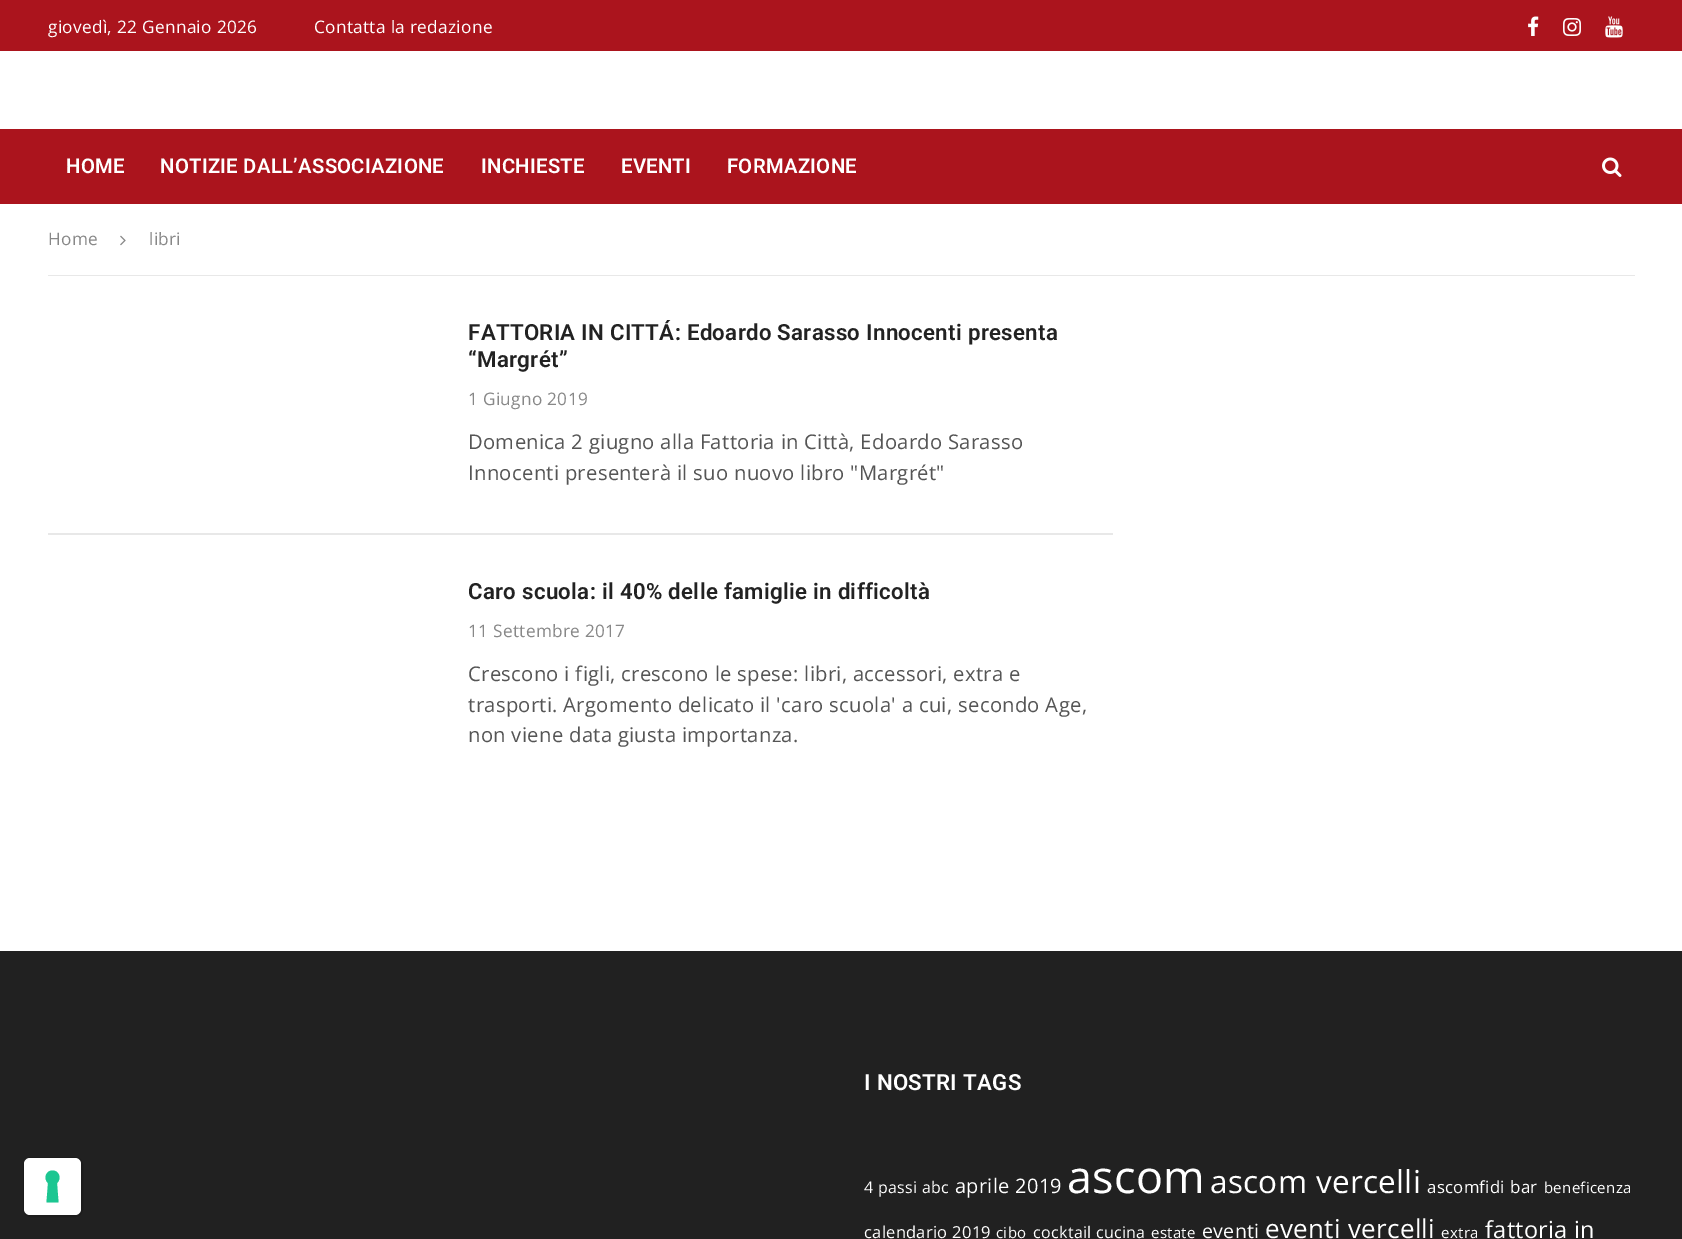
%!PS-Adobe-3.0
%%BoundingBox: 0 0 1682 1239
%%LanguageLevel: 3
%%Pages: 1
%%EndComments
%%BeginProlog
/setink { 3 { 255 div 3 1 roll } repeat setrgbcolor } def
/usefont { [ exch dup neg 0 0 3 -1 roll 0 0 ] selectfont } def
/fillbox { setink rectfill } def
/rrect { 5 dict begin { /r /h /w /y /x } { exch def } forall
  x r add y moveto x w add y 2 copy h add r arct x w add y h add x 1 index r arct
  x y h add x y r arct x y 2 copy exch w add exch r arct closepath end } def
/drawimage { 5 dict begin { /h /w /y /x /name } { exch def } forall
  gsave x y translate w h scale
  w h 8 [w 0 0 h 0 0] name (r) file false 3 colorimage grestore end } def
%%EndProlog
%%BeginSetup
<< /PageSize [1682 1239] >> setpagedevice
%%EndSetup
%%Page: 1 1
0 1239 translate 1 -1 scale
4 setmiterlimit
0 0 1682 1239 255 255 255 fillbox
0 0 1682 51 171 20 29 fillbox
/OpenSans-Regular 17.25 usefont
255 255 255 setink
48 33 moveto 0.3 0 (giovedì, 22 Gennaio 2026) ashow
314 33 moveto 0.3 0 (Contatta la redazione) ashow
(assets/img1.rgb) 1528 16 11 20 drawimage
(assets/img2.rgb) 1563 18 18 18 drawimage
(assets/img3.rgb) 1605 16 18 22 drawimage
0 129 1682 75 171 20 29 fillbox
/Roboto-SemiBold 20.25 usefont
255 255 255 setink
66 173 moveto 0.3 0 (HOME) ashow
160 173 moveto 0.3 0 (NOTIZIE DALL’ASSOCIAZIONE) ashow
481 173 moveto 0.3 0 (INCHIESTE) ashow
621 173 moveto 0.3 0 (EVENTI) ashow
727 173 moveto 0.3 0 (FORMAZIONE) ashow
(assets/img4.rgb) 1602 157 20 20 drawimage
48 275 1587 1 232 232 232 fillbox
/OpenSans-Regular 17.25 usefont
136 136 136 setink
48 245 moveto 0.3 0 (Home) ashow
(assets/img5.rgb) 120 235 6 11 drawimage
149 245 moveto 0.3 0 (libri) ashow
48 533 1065 2 232 232 232 fillbox
/Roboto-SemiBold 22.25 usefont
34 34 34 setink
468 340 moveto 0.3 0 (FATTORIA IN CITTÁ: Edoardo Sarasso Innocenti presenta) ashow
468 367 moveto 0.3 0 (“Margrét”) ashow
/OpenSans-Regular 17.25 usefont
136 136 136 setink
468 405 moveto 0.3 0 (1 Giugno 2019) ashow
/OpenSans-Regular 20.25 usefont
85 85 85 setink
468 449 moveto 0.3 0 (Domenica 2 giugno alla Fattoria in Città, Edoardo Sarasso) ashow
468 480 moveto 0.3 0 (Innocenti presenterà il suo nuovo libro "Margrét") ashow
/Roboto-SemiBold 22.25 usefont
34 34 34 setink
468 599 moveto 0.3 0 (Caro scuola: il 40% delle famiglie in difficoltà) ashow
/OpenSans-Regular 17.25 usefont
136 136 136 setink
468 637 moveto 0.3 0 (11 Settembre 2017) ashow
/OpenSans-Regular 20.25 usefont
85 85 85 setink
468 681 moveto 0.3 0 (Crescono i figli, crescono le spese: libri, accessori, extra e) ashow
468 712 moveto 0.3 0 (trasporti. Argomento delicato il 'caro scuola' a cui, secondo Age,) ashow
468 742 moveto 0.3 0 (non viene data giusta importanza.) ashow
0 951 1682 288 33 33 33 fillbox
/Roboto-SemiBold 22.25 usefont
255 255 255 setink
864 1090 moveto 0.3 0 (I NOSTRI TAGS) ashow
/OpenSans-Regular 16 usefont
864 1193 moveto 0.3 0 (4 passi) ashow
922 1193 moveto 0.3 0 (abc) ashow
/OpenSans-Regular 20 usefont
955 1193 moveto 0.3 0 (aprile 2019) ashow
/OpenSans-Regular 45 usefont
1067 1193 moveto 0.3 0 (ascom) ashow
/OpenSans-Regular 31.5 usefont
1210 1193 moveto 0.3 0 (ascom vercelli) ashow
/OpenSans-Regular 16.75 usefont
1427 1193 moveto 0.3 0 (ascomfidi) ashow
/OpenSans-Regular 17 usefont
1510 1193 moveto 0.3 0 (bar) ashow
/OpenSans-Regular 15 usefont
1544 1193 moveto 0.3 0 (beneficenza) ashow
/OpenSans-Regular 16.5 usefont
864 1238 moveto 0.3 0 (calendario 2019) ashow
/OpenSans-Regular 15 usefont
996 1238 moveto 0.3 0 (cibo) ashow
/OpenSans-Regular 16 usefont
1033 1238 moveto 0.3 0 (cocktail) ashow
1096 1238 moveto 0.3 0 (cucina) ashow
/OpenSans-Regular 15 usefont
1151 1238 moveto 0.3 0 (estate) ashow
/OpenSans-Regular 19.5 usefont
1202 1238 moveto 0.3 0 (eventi) ashow
/OpenSans-Regular 26 usefont
1265 1238 moveto 0.3 0 (eventi vercelli) ashow
/OpenSans-Regular 15 usefont
1441 1238 moveto 0.3 0 (extra) ashow
/OpenSans-Regular 23.5 usefont
1485 1238 moveto 0.3 0 (fattoria in) ashow
28 28 28 setink
2 setlinewidth
24 1158 58 58 7 rrect stroke
255 255 255 setink
24 1158 57 57 6 rrect fill
28 198 145 setink
52.5 1170.5 moveto 59 1170.5 62 1178.5 57 1183 curveto 58.5 1202.5 lineto 46.5 1202.5 lineto 48 1183 lineto 43 1178.5 46 1170.5 52.5 1170.5 curveto closepath eofill
showpage
%%EOF
